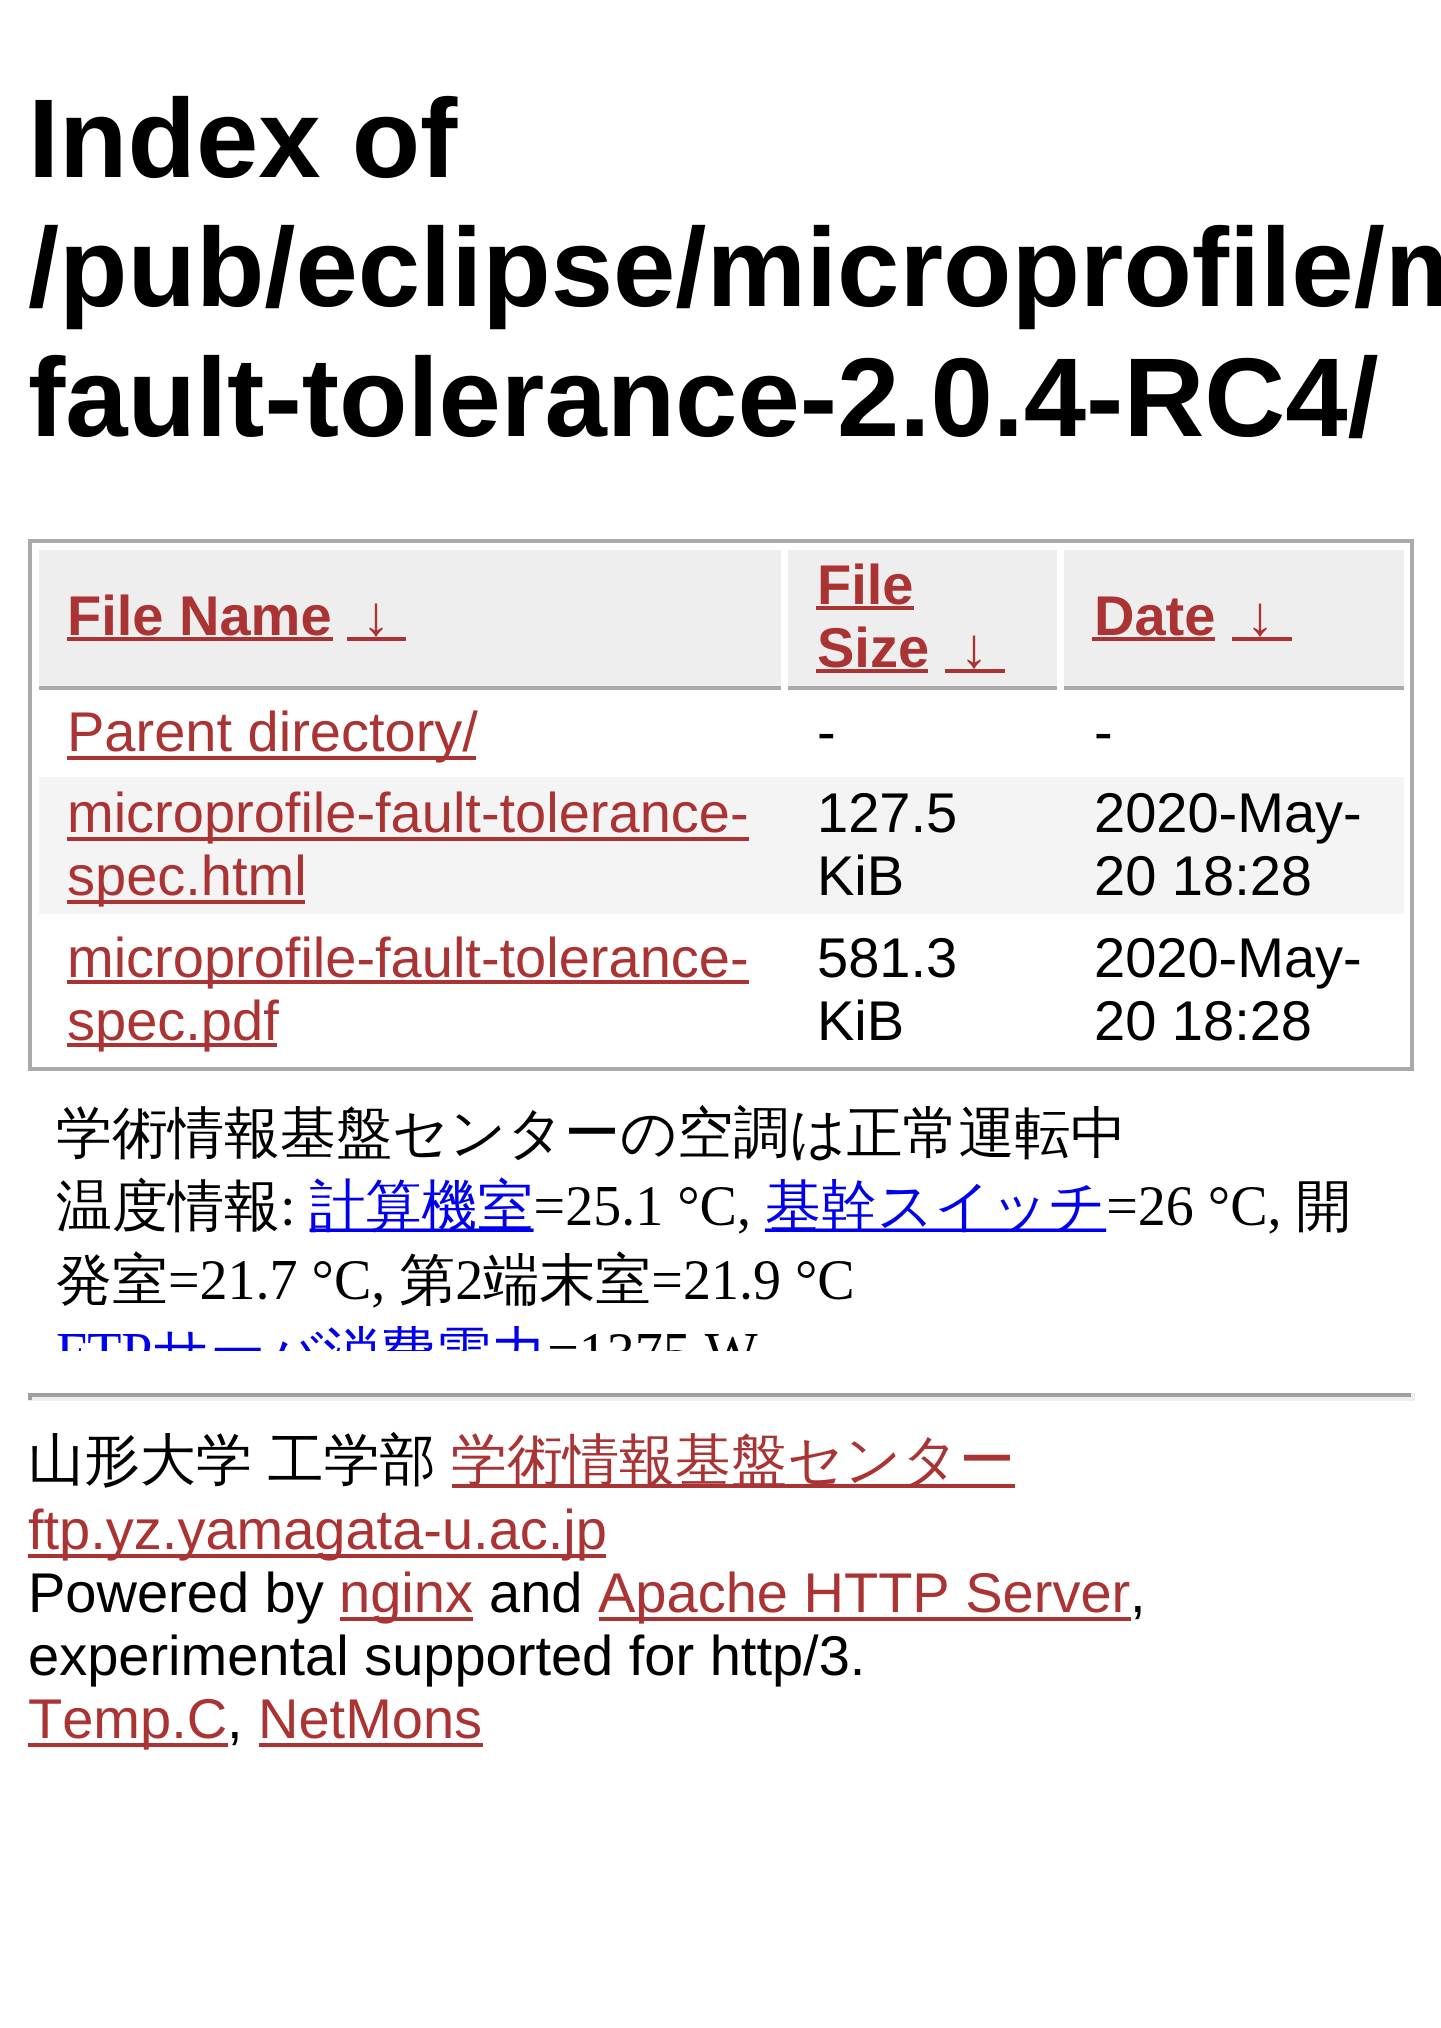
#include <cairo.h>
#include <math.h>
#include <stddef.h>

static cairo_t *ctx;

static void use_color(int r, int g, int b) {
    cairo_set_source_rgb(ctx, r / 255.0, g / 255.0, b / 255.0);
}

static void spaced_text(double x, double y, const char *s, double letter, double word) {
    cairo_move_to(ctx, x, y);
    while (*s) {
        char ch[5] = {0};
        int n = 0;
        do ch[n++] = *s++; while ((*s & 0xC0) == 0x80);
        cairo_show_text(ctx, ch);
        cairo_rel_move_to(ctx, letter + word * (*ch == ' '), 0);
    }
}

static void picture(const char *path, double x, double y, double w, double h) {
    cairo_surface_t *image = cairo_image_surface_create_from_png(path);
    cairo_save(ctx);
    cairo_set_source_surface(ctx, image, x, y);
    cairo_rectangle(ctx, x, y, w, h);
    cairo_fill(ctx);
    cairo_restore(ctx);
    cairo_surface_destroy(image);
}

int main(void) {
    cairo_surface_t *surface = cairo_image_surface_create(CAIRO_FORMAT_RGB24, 1441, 2028);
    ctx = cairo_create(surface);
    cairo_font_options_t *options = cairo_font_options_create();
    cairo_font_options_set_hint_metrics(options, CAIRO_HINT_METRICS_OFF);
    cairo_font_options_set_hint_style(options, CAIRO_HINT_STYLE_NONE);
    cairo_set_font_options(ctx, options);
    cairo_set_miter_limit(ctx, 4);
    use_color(255, 255, 255);
    cairo_paint(ctx);
    cairo_select_font_face(ctx, "Liberation Sans", CAIRO_FONT_SLANT_NORMAL, CAIRO_FONT_WEIGHT_BOLD);
    cairo_set_font_size(ctx, 112);
    use_color(0, 0, 0);
    cairo_move_to(ctx, 28, 177);
    cairo_show_text(ctx, "Index of");
    cairo_move_to(ctx, 28, 306);
    cairo_show_text(ctx, "/pub/eclipse/microprofile/m");
    cairo_move_to(ctx, 28, 436);
    cairo_show_text(ctx, "fault-tolerance-2.0.4-RC4/");
    cairo_rectangle(ctx, 30, 541, 1382, 528);
    use_color(170, 170, 170);
    cairo_set_line_width(ctx, 4);
    cairo_stroke(ctx);
    use_color(238, 238, 238);
    cairo_rectangle(ctx, 39, 550, 742, 136);
    cairo_fill(ctx);
    use_color(170, 170, 170);
    cairo_rectangle(ctx, 39, 686, 742, 4);
    cairo_fill(ctx);
    cairo_set_font_size(ctx, 56);
    use_color(170, 51, 51);
    cairo_move_to(ctx, 67, 635);
    cairo_show_text(ctx, "File Name");
    cairo_rectangle(ctx, 67, 637, 266, 4);
    cairo_fill(ctx);
    cairo_move_to(ctx, 362, 635);
    cairo_show_text(ctx, "↓");
    cairo_rectangle(ctx, 347, 637, 59, 4);
    cairo_fill(ctx);
    use_color(238, 238, 238);
    cairo_rectangle(ctx, 788, 550, 269, 136);
    cairo_fill(ctx);
    use_color(170, 170, 170);
    cairo_rectangle(ctx, 788, 686, 269, 4);
    cairo_fill(ctx);
    use_color(170, 51, 51);
    cairo_move_to(ctx, 817, 604);
    cairo_show_text(ctx, "File");
    cairo_rectangle(ctx, 816, 606, 98, 4);
    cairo_fill(ctx);
    cairo_move_to(ctx, 817, 667);
    cairo_show_text(ctx, "Size");
    cairo_rectangle(ctx, 816, 669, 112, 4);
    cairo_fill(ctx);
    cairo_move_to(ctx, 960, 667);
    cairo_show_text(ctx, "↓");
    cairo_rectangle(ctx, 945, 669, 60, 4);
    cairo_fill(ctx);
    use_color(238, 238, 238);
    cairo_rectangle(ctx, 1064, 550, 340, 136);
    cairo_fill(ctx);
    use_color(170, 170, 170);
    cairo_rectangle(ctx, 1064, 686, 340, 4);
    cairo_fill(ctx);
    use_color(170, 51, 51);
    cairo_move_to(ctx, 1094, 635);
    cairo_show_text(ctx, "Date");
    cairo_rectangle(ctx, 1092, 637, 123, 4);
    cairo_fill(ctx);
    cairo_move_to(ctx, 1246, 635);
    cairo_show_text(ctx, "↓");
    cairo_rectangle(ctx, 1232, 637, 60, 4);
    cairo_fill(ctx);
    cairo_rectangle(ctx, 67, 756, 409, 4);
    cairo_fill(ctx);
    cairo_select_font_face(ctx, "Liberation Sans", CAIRO_FONT_SLANT_NORMAL, CAIRO_FONT_WEIGHT_NORMAL);
    cairo_move_to(ctx, 67, 751);
    cairo_show_text(ctx, "Parent directory/");
    use_color(0, 0, 0);
    cairo_move_to(ctx, 817, 751);
    cairo_show_text(ctx, "-");
    cairo_move_to(ctx, 1094, 751);
    cairo_show_text(ctx, "-");
    use_color(244, 244, 244);
    cairo_rectangle(ctx, 39, 777, 1365, 137);
    cairo_fill(ctx);
    use_color(170, 51, 51);
    cairo_rectangle(ctx, 67, 837, 682, 4);
    cairo_fill(ctx);
    cairo_move_to(ctx, 67, 832);
    cairo_show_text(ctx, "microprofile-fault-tolerance-");
    cairo_rectangle(ctx, 67, 900, 238, 4);
    cairo_fill(ctx);
    cairo_move_to(ctx, 67, 895);
    cairo_show_text(ctx, "spec.html");
    use_color(0, 0, 0);
    cairo_move_to(ctx, 817, 832);
    cairo_show_text(ctx, "127.5");
    cairo_move_to(ctx, 817, 895);
    cairo_show_text(ctx, "KiB");
    cairo_move_to(ctx, 1094, 832);
    cairo_show_text(ctx, "2020-May-");
    cairo_move_to(ctx, 1094, 895);
    cairo_show_text(ctx, "20 18:28");
    use_color(170, 51, 51);
    cairo_rectangle(ctx, 67, 980, 682, 4);
    cairo_fill(ctx);
    cairo_move_to(ctx, 67, 977);
    cairo_show_text(ctx, "microprofile-fault-tolerance-");
    cairo_rectangle(ctx, 67, 1043, 210, 4);
    cairo_fill(ctx);
    cairo_move_to(ctx, 67, 1040);
    cairo_show_text(ctx, "spec.pdf");
    use_color(0, 0, 0);
    cairo_move_to(ctx, 817, 977);
    cairo_show_text(ctx, "581.3");
    cairo_move_to(ctx, 817, 1040);
    cairo_show_text(ctx, "KiB");
    cairo_move_to(ctx, 1094, 977);
    cairo_show_text(ctx, "2020-May-");
    cairo_move_to(ctx, 1094, 1040);
    cairo_show_text(ctx, "20 18:28");
    picture("img1.png", 56, 1104, 1291, 247);
    use_color(159, 159, 159);
    cairo_rectangle(ctx, 28, 1393, 1386, 4);
    cairo_fill(ctx);
    use_color(238, 238, 238);
    cairo_rectangle(ctx, 1411, 1393, 4, 7);
    cairo_fill(ctx);
    cairo_rectangle(ctx, 28, 1397, 1386, 4);
    cairo_fill(ctx);
    use_color(159, 159, 159);
    cairo_rectangle(ctx, 28, 1393, 4, 7);
    cairo_fill(ctx);
    cairo_select_font_face(ctx, "WenQuanYi Zen Hei Medium", CAIRO_FONT_SLANT_NORMAL, CAIRO_FONT_WEIGHT_NORMAL);
    use_color(0, 0, 0);
    spaced_text(28, 1479, "山形大学 工学部", 0, -1);
    use_color(170, 51, 51);
    cairo_rectangle(ctx, 452, 1484, 563, 4);
    cairo_fill(ctx);
    cairo_move_to(ctx, 451, 1479);
    cairo_show_text(ctx, "学術情報基盤センター");
    cairo_rectangle(ctx, 28, 1554, 578, 4);
    cairo_fill(ctx);
    cairo_select_font_face(ctx, "Liberation Sans", CAIRO_FONT_SLANT_NORMAL, CAIRO_FONT_WEIGHT_NORMAL);
    cairo_move_to(ctx, 28, 1549);
    cairo_show_text(ctx, "ftp.yz.yamagata-u.ac.jp");
    use_color(0, 0, 0);
    cairo_move_to(ctx, 28, 1612);
    cairo_show_text(ctx, "Powered by");
    use_color(170, 51, 51);
    cairo_rectangle(ctx, 340, 1617, 133, 4);
    cairo_fill(ctx);
    cairo_move_to(ctx, 339, 1612);
    cairo_show_text(ctx, "nginx");
    use_color(0, 0, 0);
    cairo_move_to(ctx, 489, 1612);
    cairo_show_text(ctx, "and");
    use_color(170, 51, 51);
    cairo_rectangle(ctx, 599, 1617, 532, 4);
    cairo_fill(ctx);
    cairo_move_to(ctx, 598, 1612);
    cairo_show_text(ctx, "Apache HTTP Server");
    use_color(0, 0, 0);
    cairo_move_to(ctx, 1130, 1612);
    cairo_show_text(ctx, ",");
    cairo_move_to(ctx, 28, 1675);
    cairo_show_text(ctx, "experimental supported for http/3.");
    use_color(170, 51, 51);
    cairo_rectangle(ctx, 28, 1743, 200, 4);
    cairo_fill(ctx);
    cairo_move_to(ctx, 28, 1738);
    cairo_show_text(ctx, "Temp.C");
    use_color(0, 0, 0);
    cairo_move_to(ctx, 227, 1738);
    cairo_show_text(ctx, ",");
    use_color(170, 51, 51);
    cairo_move_to(ctx, 258, 1738);
    cairo_show_text(ctx, "NetMons");
    cairo_rectangle(ctx, 259, 1743, 224, 4);
    cairo_fill(ctx);
    cairo_surface_write_to_png(surface, "result.png");
    cairo_font_options_destroy(options);
    cairo_destroy(ctx);
    cairo_surface_destroy(surface);
    return 0;
}
